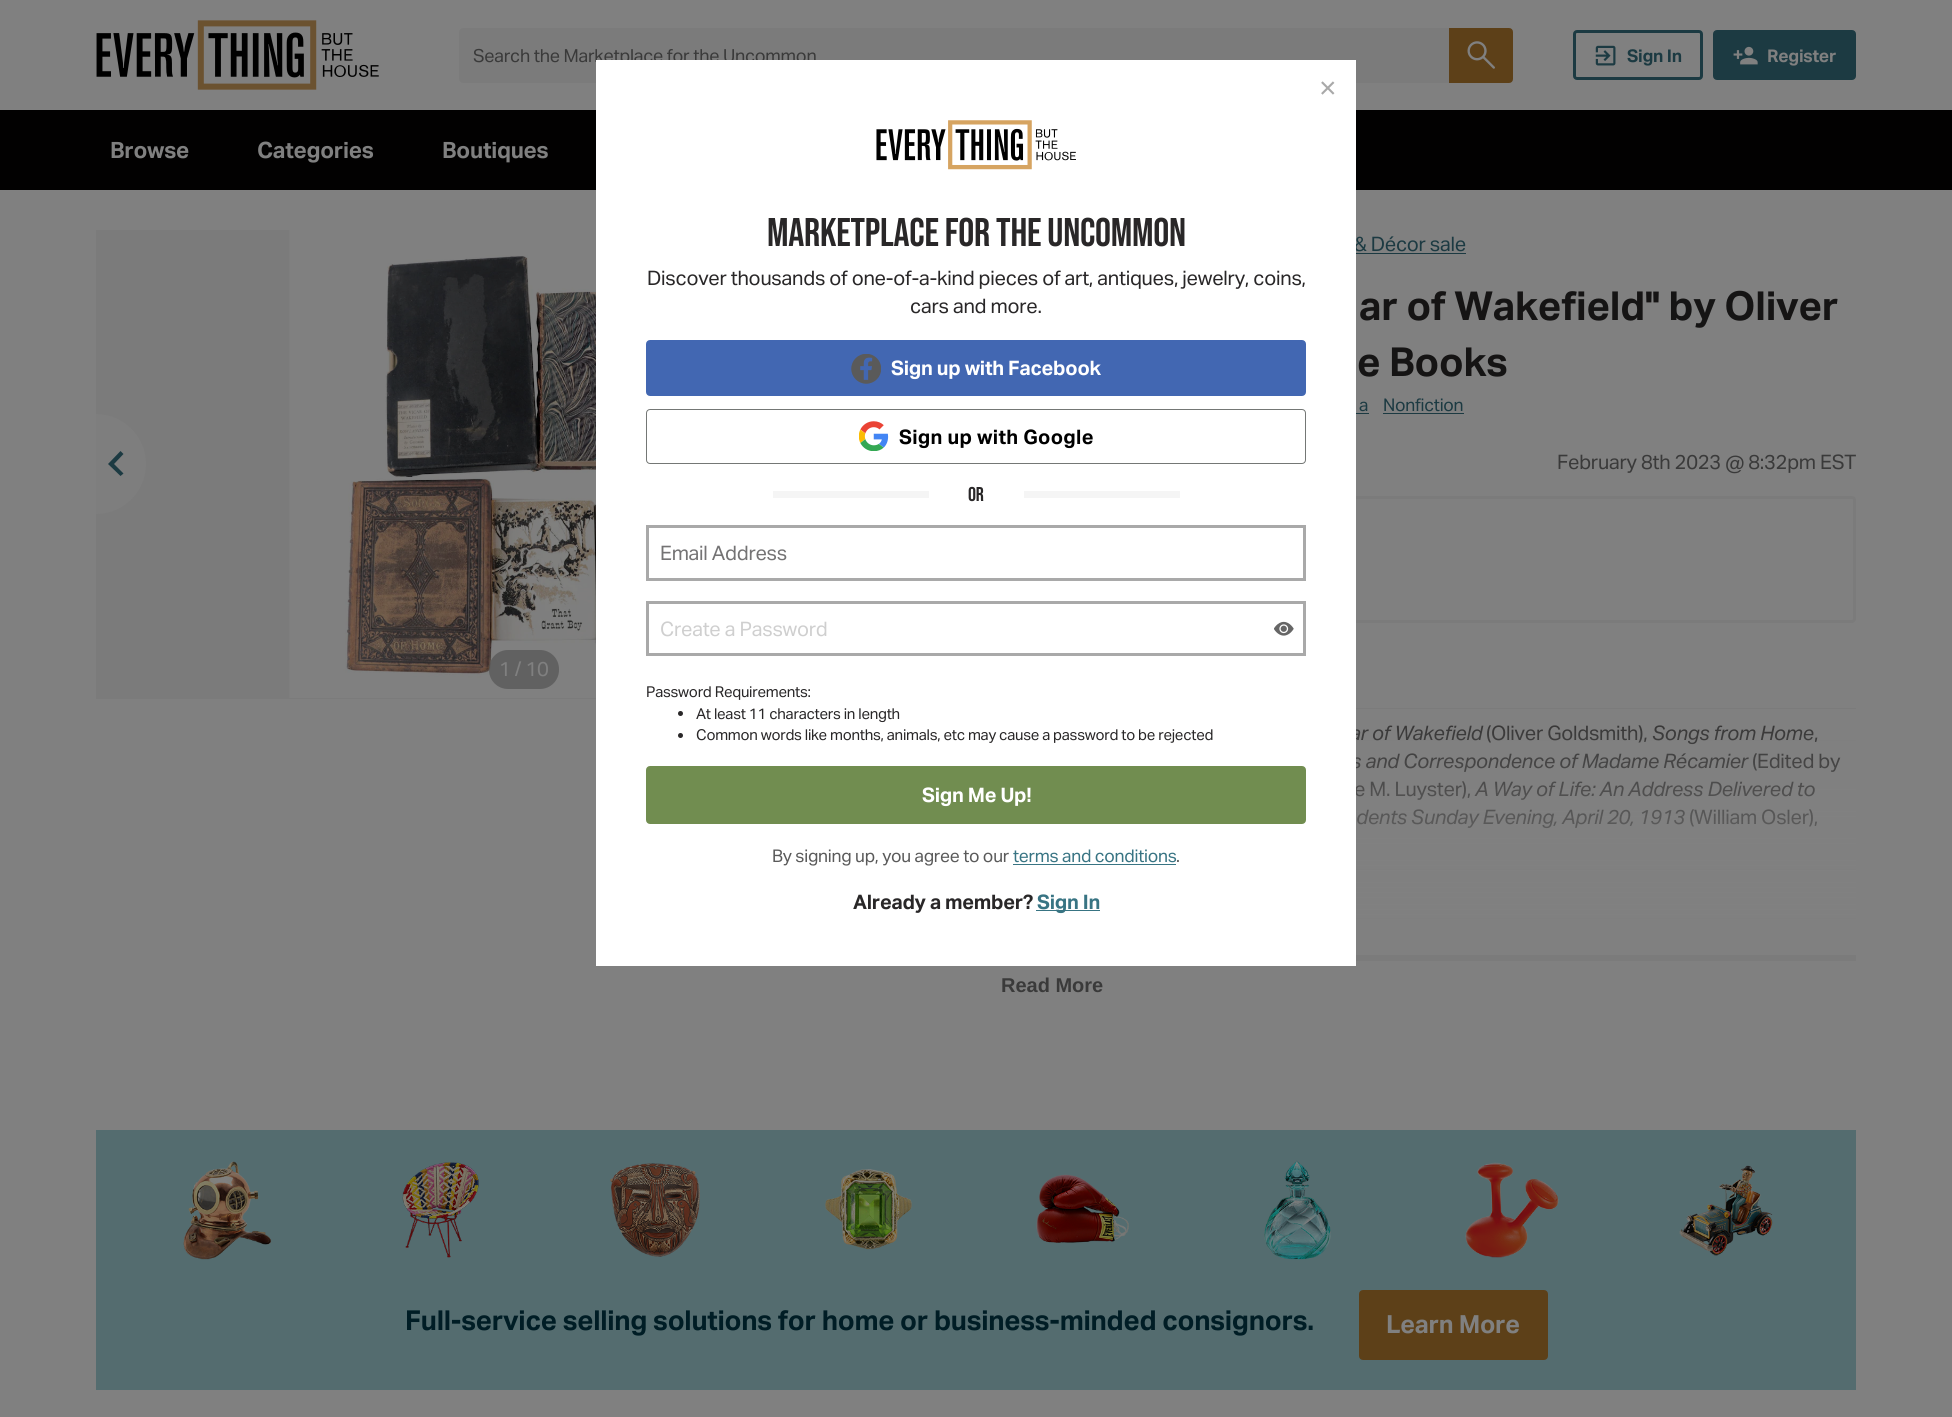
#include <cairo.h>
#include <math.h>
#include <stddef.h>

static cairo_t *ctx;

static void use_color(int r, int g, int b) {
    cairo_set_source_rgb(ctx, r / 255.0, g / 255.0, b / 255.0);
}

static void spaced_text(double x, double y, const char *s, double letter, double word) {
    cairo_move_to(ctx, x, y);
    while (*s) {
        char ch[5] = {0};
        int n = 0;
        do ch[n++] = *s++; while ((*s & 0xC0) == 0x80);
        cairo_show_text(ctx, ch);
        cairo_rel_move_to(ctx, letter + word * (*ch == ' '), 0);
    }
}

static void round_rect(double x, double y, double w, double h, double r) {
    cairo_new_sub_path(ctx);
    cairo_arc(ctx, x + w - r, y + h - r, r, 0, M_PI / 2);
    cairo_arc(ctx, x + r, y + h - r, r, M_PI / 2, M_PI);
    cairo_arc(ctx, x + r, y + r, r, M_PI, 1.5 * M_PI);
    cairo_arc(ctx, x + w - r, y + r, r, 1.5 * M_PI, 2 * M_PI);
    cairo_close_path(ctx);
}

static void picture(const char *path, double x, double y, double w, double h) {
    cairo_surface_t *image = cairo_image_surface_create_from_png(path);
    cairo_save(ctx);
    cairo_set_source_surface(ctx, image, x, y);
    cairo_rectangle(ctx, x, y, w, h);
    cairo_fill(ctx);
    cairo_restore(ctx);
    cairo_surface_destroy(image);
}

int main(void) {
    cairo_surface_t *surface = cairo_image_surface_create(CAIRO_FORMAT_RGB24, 1952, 1417);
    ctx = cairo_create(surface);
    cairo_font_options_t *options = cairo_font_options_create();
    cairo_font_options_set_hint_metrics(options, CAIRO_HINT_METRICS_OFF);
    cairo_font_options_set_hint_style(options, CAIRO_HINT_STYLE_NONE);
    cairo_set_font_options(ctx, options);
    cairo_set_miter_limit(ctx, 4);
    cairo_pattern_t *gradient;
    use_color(128, 128, 128);
    cairo_paint(ctx);
    picture("img1.png", 96, 20, 283, 70);
    use_color(123, 123, 123);
    cairo_new_path(ctx);
    cairo_move_to(ctx, 463, 28);
    cairo_line_to(ctx, 1449, 28);
    cairo_line_to(ctx, 1449, 83);
    cairo_line_to(ctx, 463, 83);
    cairo_curve_to(ctx, 461, 83, 459, 81, 459, 79);
    cairo_line_to(ctx, 459, 32);
    cairo_curve_to(ctx, 459, 30, 461, 28, 463, 28);
    cairo_close_path(ctx);
    cairo_fill(ctx);
    cairo_select_font_face(ctx, "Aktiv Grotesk", CAIRO_FONT_SLANT_NORMAL, CAIRO_FONT_WEIGHT_NORMAL);
    cairo_set_font_size(ctx, 18);
    use_color(58, 58, 58);
    spaced_text(473, 62, "Search the Marketplace for the Uncommon", -0.25, 0);
    use_color(93, 64, 24);
    cairo_new_path(ctx);
    cairo_move_to(ctx, 1450.5, 29.5);
    cairo_line_to(ctx, 1509, 29.5);
    cairo_curve_to(ctx, 1510.5, 29.5, 1511.5, 30.5, 1511.5, 32);
    cairo_line_to(ctx, 1511.5, 79);
    cairo_curve_to(ctx, 1511.5, 80.5, 1510.5, 81.5, 1509, 81.5);
    cairo_line_to(ctx, 1450.5, 81.5);
    cairo_close_path(ctx);
    cairo_fill_preserve(ctx);
    cairo_set_line_width(ctx, 3);
    cairo_stroke(ctx);
    picture("img2.png", 1467, 41, 28, 28);
    round_rect(1574.5, 31.5, 127, 47, 2.5);
    use_color(28, 58, 66);
    cairo_stroke(ctx);
    picture("img3.png", 1595, 45, 21, 21);
    cairo_select_font_face(ctx, "Aktiv Grotesk", CAIRO_FONT_SLANT_NORMAL, CAIRO_FONT_WEIGHT_BOLD);
    cairo_set_font_size(ctx, 17.5);
    spaced_text(1627, 62, "Sign In", -0.25, 0);
    round_rect(1714.5, 31.5, 140, 47, 2.5);
    cairo_fill_preserve(ctx);
    cairo_stroke(ctx);
    picture("img4.png", 1733, 46, 25, 19);
    use_color(128, 128, 128);
    spaced_text(1767, 62, "Register", -0.25, 0);
    use_color(2, 1, 1);
    cairo_rectangle(ctx, 0, 110, 1952, 80);
    cairo_fill(ctx);
    cairo_set_font_size(ctx, 22.5);
    use_color(128, 128, 128);
    spaced_text(110, 158, "Browse", -0.25, 0);
    spaced_text(257, 158, "Categories", -0.25, 0);
    spaced_text(442, 158, "Boutiques", -0.25, 0);
    cairo_select_font_face(ctx, "Aktiv Grotesk", CAIRO_FONT_SLANT_NORMAL, CAIRO_FONT_WEIGHT_NORMAL);
    cairo_set_font_size(ctx, 20);
    use_color(28, 58, 66);
    spaced_text(1354, 251, "& Décor sale", -0.25, 0);
    round_rect(1002.5, 497.5, 852, 124, 2.5);
    use_color(123, 123, 123);
    cairo_stroke(ctx);
    cairo_select_font_face(ctx, "Aktiv Grotesk", CAIRO_FONT_SLANT_ITALIC, CAIRO_FONT_WEIGHT_NORMAL);
    use_color(21, 20, 20);
    spaced_text(1350, 740, "ar of Wakefield", -0.25, 0);
    spaced_text(1351, 768, "s and Correspondence of Madame Récamier", -0.25, 0);
    cairo_select_font_face(ctx, "Aktiv Grotesk", CAIRO_FONT_SLANT_NORMAL, CAIRO_FONT_WEIGHT_NORMAL);
    spaced_text(1354, 796, "e M. Luyster),", -0.25, 0);
    use_color(255, 255, 255);
    cairo_rectangle(ctx, 596, 60, 760, 906);
    cairo_fill(ctx);
    cairo_select_font_face(ctx, "Liberation Sans", CAIRO_FONT_SLANT_NORMAL, CAIRO_FONT_WEIGHT_NORMAL);
    cairo_set_font_size(ctx, 30);
    use_color(169, 169, 169);
    cairo_move_to(ctx, 1319, 98);
    cairo_show_text(ctx, "×");
    picture("img5.png", 876, 120, 200, 50);
    cairo_select_font_face(ctx, "Bebas Neue", CAIRO_FONT_SLANT_NORMAL, CAIRO_FONT_WEIGHT_NORMAL);
    cairo_set_font_size(ctx, 40);
    use_color(41, 39, 40);
    spaced_text(767, 246, "MARKETPLACE FOR THE UNCOMMON", -0.25, 0);
    cairo_select_font_face(ctx, "Aktiv Grotesk", CAIRO_FONT_SLANT_NORMAL, CAIRO_FONT_WEIGHT_NORMAL);
    cairo_set_font_size(ctx, 20);
    spaced_text(647, 285, "Discover thousands of one-of-a-kind pieces of art, antiques, jewelry, coins,", -0.25, 0);
    spaced_text(910, 313, "cars and more.", -0.25, 0);
    use_color(66, 103, 178);
    round_rect(647.5, 341.5, 657, 53, 2.5);
    cairo_fill_preserve(ctx);
    cairo_stroke(ctx);
    picture("img6.png", 851, 354, 30, 30);
    cairo_select_font_face(ctx, "Aktiv Grotesk", CAIRO_FONT_SLANT_NORMAL, CAIRO_FONT_WEIGHT_BOLD);
    use_color(255, 255, 255);
    spaced_text(891, 375, "Sign up with Facebook", -0.25, 0);
    round_rect(646.5, 409.5, 659, 54, 3.5);
    use_color(116, 119, 117);
    cairo_set_line_width(ctx, 1);
    cairo_stroke(ctx);
    picture("img7.png", 859, 421, 30, 30);
    use_color(0, 0, 0);
    spaced_text(899, 444, "Sign up with Google", 0.3, 0);
    use_color(245, 245, 245);
    cairo_rectangle(ctx, 773, 491, 156, 7);
    cairo_fill(ctx);
    cairo_select_font_face(ctx, "Bebas Neue", CAIRO_FONT_SLANT_NORMAL, CAIRO_FONT_WEIGHT_NORMAL);
    use_color(41, 39, 40);
    spaced_text(968, 501, "OR", -0.25, 0);
    use_color(245, 245, 245);
    cairo_rectangle(ctx, 1024, 491, 156, 7);
    cairo_fill(ctx);
    cairo_rectangle(ctx, 647.5, 526.5, 657, 53);
    use_color(169, 169, 169);
    cairo_set_line_width(ctx, 3);
    cairo_stroke(ctx);
    cairo_select_font_face(ctx, "Aktiv Grotesk", CAIRO_FONT_SLANT_NORMAL, CAIRO_FONT_WEIGHT_NORMAL);
    use_color(116, 115, 116);
    spaced_text(660, 560, "Email Address", -0.25, 0);
    cairo_rectangle(ctx, 647.5, 602.5, 657, 52);
    use_color(169, 169, 169);
    cairo_stroke(ctx);
    use_color(207, 207, 207);
    spaced_text(660, 636, "Create a Password", -0.25, 0);
    picture("img8.png", 1274, 621, 20, 15);
    cairo_set_font_size(ctx, 15);
    use_color(41, 39, 40);
    spaced_text(646, 697, "Password Requirements:", -0.25, 0);
    cairo_new_path(ctx);
    cairo_arc(ctx, 680.5, 713.5, 2.5, 0, 2 * M_PI);
    cairo_fill(ctx);
    spaced_text(696, 719, "At least 11 characters in length", -0.25, 0);
    cairo_new_path(ctx);
    cairo_arc(ctx, 680.5, 735.5, 2.5, 0, 2 * M_PI);
    cairo_fill(ctx);
    spaced_text(696, 740, "Common words like months, animals, etc may cause a password to be rejected", -0.25, 0);
    use_color(113, 141, 80);
    round_rect(647.5, 767.5, 657, 55, 2.5);
    cairo_fill_preserve(ctx);
    cairo_stroke(ctx);
    cairo_select_font_face(ctx, "Aktiv Grotesk", CAIRO_FONT_SLANT_NORMAL, CAIRO_FONT_WEIGHT_BOLD);
    cairo_set_font_size(ctx, 20);
    use_color(255, 255, 255);
    spaced_text(922, 802, "Sign Me Up!", -0.25, 0);
    cairo_select_font_face(ctx, "Aktiv Grotesk", CAIRO_FONT_SLANT_NORMAL, CAIRO_FONT_WEIGHT_NORMAL);
    cairo_set_font_size(ctx, 17.5);
    use_color(90, 90, 90);
    spaced_text(772, 862, "By signing up, you agree to our", -0.25, 0);
    use_color(56, 116, 131);
    spaced_text(1013, 862, "terms and conditions", -0.25, 0);
    cairo_rectangle(ctx, 1013, 864, 163, 1);
    cairo_fill(ctx);
    use_color(90, 90, 90);
    spaced_text(1176, 862, ".", -0.25, 0);
    cairo_select_font_face(ctx, "Aktiv Grotesk", CAIRO_FONT_SLANT_NORMAL, CAIRO_FONT_WEIGHT_BOLD);
    cairo_set_font_size(ctx, 20);
    use_color(41, 39, 40);
    spaced_text(853, 909, "Already a member?", -0.25, 0);
    use_color(56, 116, 131);
    cairo_rectangle(ctx, 1036, 910, 64, 1);
    cairo_fill(ctx);
    spaced_text(1037, 909, "Sign In", -0.25, 0);
    use_color(123, 123, 123);
    cairo_rectangle(ctx, 96, 230, 500, 469);
    cairo_fill(ctx);
    picture("img9.png", 289, 230, 307, 468);
    use_color(126, 126, 126);
    cairo_new_path(ctx);
    cairo_move_to(ctx, 96, 414);
    cairo_curve_to(ctx, 123.5, 414, 146, 436.5, 146, 464);
    cairo_curve_to(ctx, 146, 491.5, 123.5, 514, 96, 514);
    cairo_close_path(ctx);
    cairo_fill(ctx);
    use_color(28, 58, 66);
    cairo_new_path(ctx);
    cairo_move_to(ctx, 123.5, 454);
    cairo_line_to(ctx, 120.5, 451);
    cairo_line_to(ctx, 108, 464);
    cairo_line_to(ctx, 120.5, 476);
    cairo_line_to(ctx, 123.5, 473.5);
    cairo_line_to(ctx, 114, 464);
    cairo_close_path(ctx);
    cairo_fill(ctx);
    cairo_set_source_rgba(ctx, 0.333, 0.333, 0.333, 0.7);
    round_rect(489, 650, 70, 39, 19);
    cairo_fill(ctx);
    cairo_select_font_face(ctx, "Aktiv Grotesk", CAIRO_FONT_SLANT_NORMAL, CAIRO_FONT_WEIGHT_NORMAL);
    use_color(128, 128, 128);
    spaced_text(499, 676, "1 / 10", -0.25, 0);
    use_color(28, 58, 66);
    cairo_rectangle(ctx, 1356, 253, 110, 1);
    cairo_fill(ctx);
    cairo_select_font_face(ctx, "Aktiv Grotesk", CAIRO_FONT_SLANT_NORMAL, CAIRO_FONT_WEIGHT_BOLD);
    cairo_set_font_size(ctx, 40);
    use_color(21, 20, 20);
    spaced_text(1359, 320, "ar of Wakefield\" by Oliver", -0.25, 0);
    spaced_text(1357, 376, "e Books", -0.25, 0);
    cairo_select_font_face(ctx, "Aktiv Grotesk", CAIRO_FONT_SLANT_NORMAL, CAIRO_FONT_WEIGHT_NORMAL);
    cairo_set_font_size(ctx, 17.5);
    use_color(28, 58, 66);
    spaced_text(1359, 411, "a", -0.25, 0);
    cairo_rectangle(ctx, 1356, 413, 13, 1);
    cairo_fill(ctx);
    spaced_text(1383, 411, "Nonfiction", -0.25, 0);
    cairo_rectangle(ctx, 1383, 413, 81, 1);
    cairo_fill(ctx);
    cairo_set_font_size(ctx, 20);
    use_color(58, 58, 58);
    spaced_text(1557, 469, "February 8th 2023 @ 8:32pm EST", -0.25, 0);
    use_color(123, 123, 123);
    cairo_rectangle(ctx, 1356, 708, 500, 1);
    cairo_fill(ctx);
    cairo_rectangle(ctx, 1356, 869, 500, 1);
    cairo_fill(ctx);
    use_color(21, 20, 20);
    spaced_text(1486, 740, "(Oliver Goldsmith),", -0.25, 0);
    cairo_select_font_face(ctx, "Aktiv Grotesk", CAIRO_FONT_SLANT_ITALIC, CAIRO_FONT_WEIGHT_NORMAL);
    spaced_text(1652, 740, "Songs from Home", -0.25, 0);
    cairo_select_font_face(ctx, "Aktiv Grotesk", CAIRO_FONT_SLANT_NORMAL, CAIRO_FONT_WEIGHT_NORMAL);
    spaced_text(1814, 740, ",", -0.25, 0);
    spaced_text(1752, 768, "(Edited by", -0.25, 0);
    cairo_select_font_face(ctx, "Aktiv Grotesk", CAIRO_FONT_SLANT_ITALIC, CAIRO_FONT_WEIGHT_NORMAL);
    spaced_text(1475, 796, "A Way of Life: An Address Delivered to", -0.25, 0);
    spaced_text(1356, 824, "dents Sunday Evening, April 20, 1913", -0.25, 0);
    cairo_select_font_face(ctx, "Aktiv Grotesk", CAIRO_FONT_SLANT_NORMAL, CAIRO_FONT_WEIGHT_NORMAL);
    spaced_text(1689, 824, "(William Osler),", -0.25, 0);
    use_color(123, 123, 123);
    cairo_rectangle(ctx, 1356, 918, 500, 1);
    cairo_fill(ctx);
    gradient = cairo_pattern_create_linear(1429, 622, 1429, 935);
    cairo_pattern_add_color_stop_rgba(gradient, 0, 0.502, 0.502, 0.502, 0);
    cairo_pattern_add_color_stop_rgba(gradient, 1, 0.502, 0.502, 0.502, 1);
    cairo_set_source(ctx, gradient);
    cairo_pattern_destroy(gradient);
    cairo_rectangle(ctx, 1356, 725, 500, 194);
    cairo_fill(ctx);
    use_color(123, 123, 123);
    cairo_rectangle(ctx, 1356, 955, 500, 6);
    cairo_fill(ctx);
    cairo_select_font_face(ctx, "Liberation Sans", CAIRO_FONT_SLANT_NORMAL, CAIRO_FONT_WEIGHT_BOLD);
    use_color(58, 58, 58);
    cairo_move_to(ctx, 1001, 992);
    cairo_show_text(ctx, "Read More");
    use_color(84, 108, 111);
    cairo_rectangle(ctx, 96, 1130, 1760, 260);
    cairo_fill(ctx);
    picture("img10.png", 183, 1161, 89, 99);
    picture("img11.png", 402, 1162, 77, 96);
    picture("img12.png", 610, 1163, 90, 94);
    picture("img13.png", 825, 1169, 87, 81);
    picture("img14.png", 1036, 1174, 93, 69);
    picture("img15.png", 1264, 1160, 67, 100);
    picture("img16.png", 1465, 1162, 94, 96);
    picture("img17.png", 1679, 1165, 94, 91);
    cairo_select_font_face(ctx, "Aktiv Grotesk", CAIRO_FONT_SLANT_NORMAL, CAIRO_FONT_WEIGHT_BOLD);
    cairo_set_font_size(ctx, 27.5);
    use_color(0, 29, 37);
    spaced_text(405, 1330, "Full-service selling solutions for home or business-minded consignors.", -0.25, 0);
    use_color(93, 64, 24);
    round_rect(1360.5, 1291.5, 186, 67, 2.5);
    cairo_fill_preserve(ctx);
    cairo_stroke(ctx);
    cairo_set_font_size(ctx, 25);
    use_color(128, 128, 128);
    spaced_text(1386, 1333, "Learn More", -0.25, 0);
    cairo_surface_write_to_png(surface, "result.png");
    cairo_font_options_destroy(options);
    cairo_destroy(ctx);
    cairo_surface_destroy(surface);
    return 0;
}
